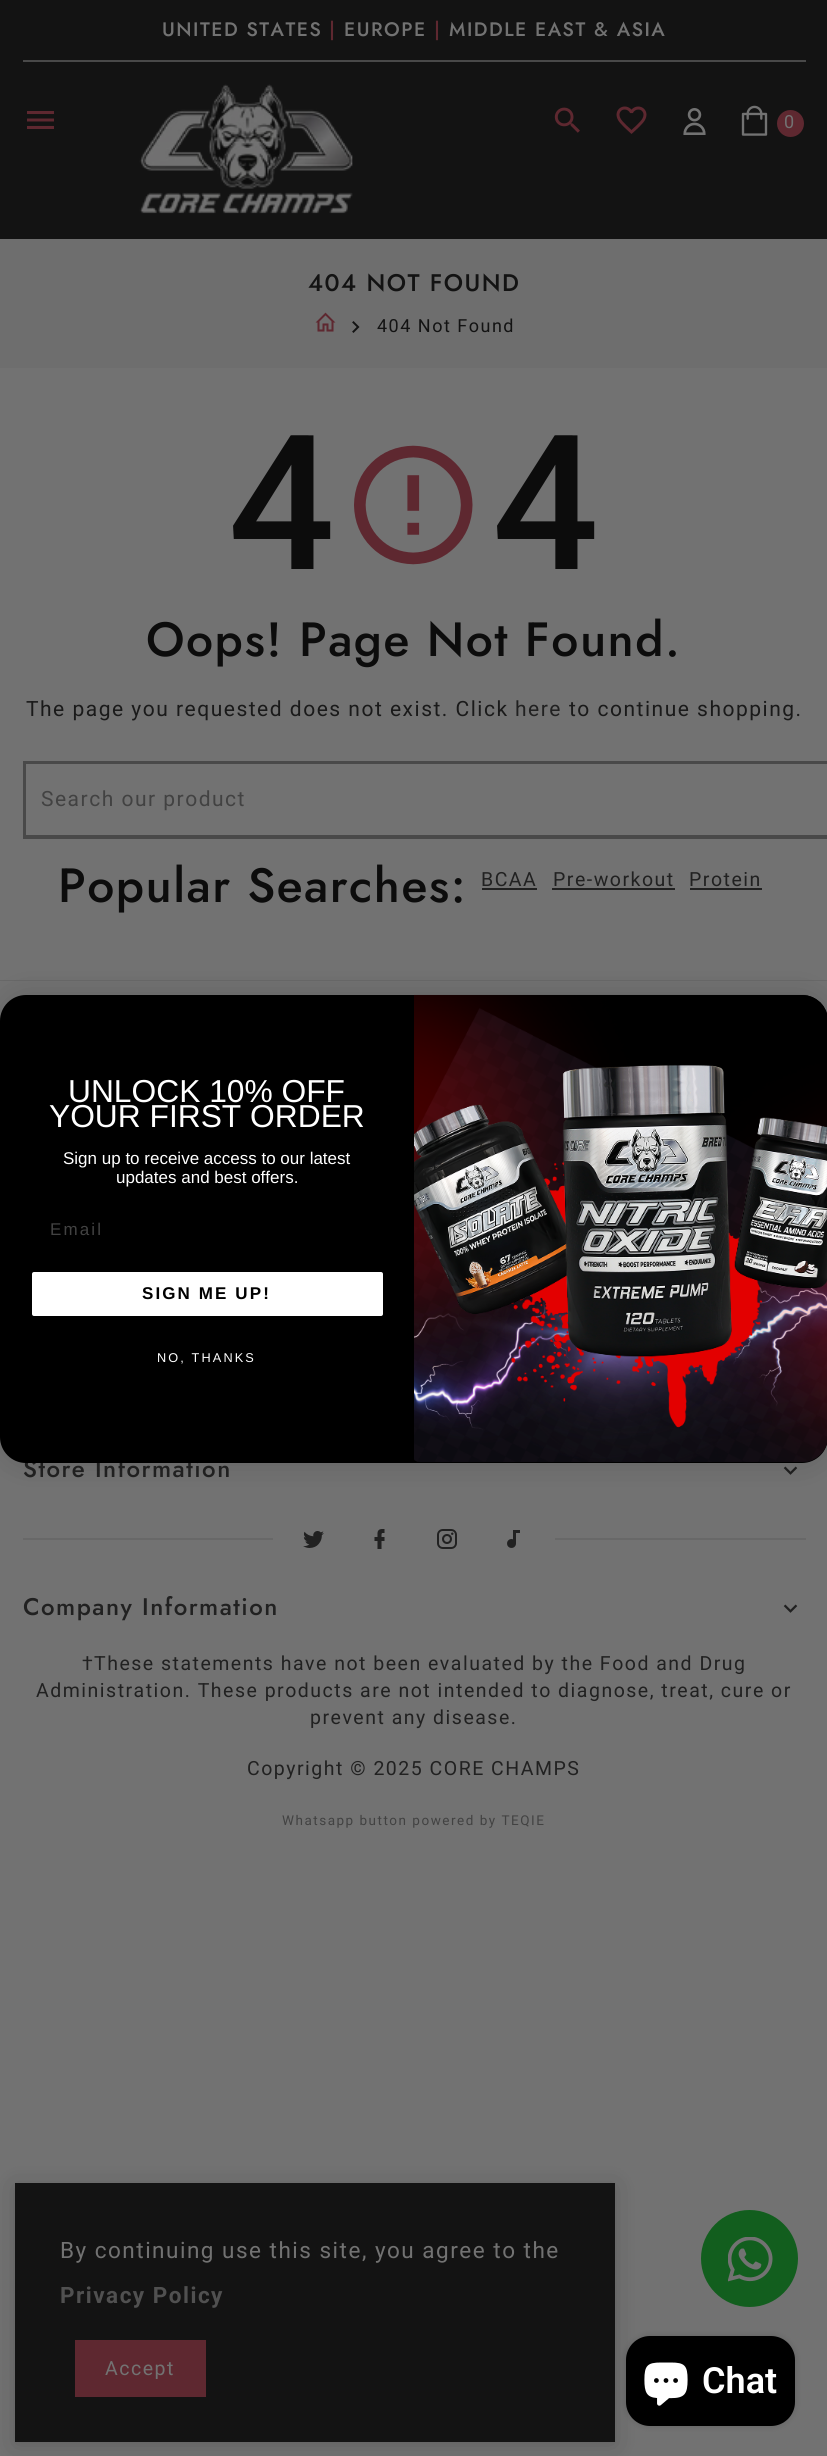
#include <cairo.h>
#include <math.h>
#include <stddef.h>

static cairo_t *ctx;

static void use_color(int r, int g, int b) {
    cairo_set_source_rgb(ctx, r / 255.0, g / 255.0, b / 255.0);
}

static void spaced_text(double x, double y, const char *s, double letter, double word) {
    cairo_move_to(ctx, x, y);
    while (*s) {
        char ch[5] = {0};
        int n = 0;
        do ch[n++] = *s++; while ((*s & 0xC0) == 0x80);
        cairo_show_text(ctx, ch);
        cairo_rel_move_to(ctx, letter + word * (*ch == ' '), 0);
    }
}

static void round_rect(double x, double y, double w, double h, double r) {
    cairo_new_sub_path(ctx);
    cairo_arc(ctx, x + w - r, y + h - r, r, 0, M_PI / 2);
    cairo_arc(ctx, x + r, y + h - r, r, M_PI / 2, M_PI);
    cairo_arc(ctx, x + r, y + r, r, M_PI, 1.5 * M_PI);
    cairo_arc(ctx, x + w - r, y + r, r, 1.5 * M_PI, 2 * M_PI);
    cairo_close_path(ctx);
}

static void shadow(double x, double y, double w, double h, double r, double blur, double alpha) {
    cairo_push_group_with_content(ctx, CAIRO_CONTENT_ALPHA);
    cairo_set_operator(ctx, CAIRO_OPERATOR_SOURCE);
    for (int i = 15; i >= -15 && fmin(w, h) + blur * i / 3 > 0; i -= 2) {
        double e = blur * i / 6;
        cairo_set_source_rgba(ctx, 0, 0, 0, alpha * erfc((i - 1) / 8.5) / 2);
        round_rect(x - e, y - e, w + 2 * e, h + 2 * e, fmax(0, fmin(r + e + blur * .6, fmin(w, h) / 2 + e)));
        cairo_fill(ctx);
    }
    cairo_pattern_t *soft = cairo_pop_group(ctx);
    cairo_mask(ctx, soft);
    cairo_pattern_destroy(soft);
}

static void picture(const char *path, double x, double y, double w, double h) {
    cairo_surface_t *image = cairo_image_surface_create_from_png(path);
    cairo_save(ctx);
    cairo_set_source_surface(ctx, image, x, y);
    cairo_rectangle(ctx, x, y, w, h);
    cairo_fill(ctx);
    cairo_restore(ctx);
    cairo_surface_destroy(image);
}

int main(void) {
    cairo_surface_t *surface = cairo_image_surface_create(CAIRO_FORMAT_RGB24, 827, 2456);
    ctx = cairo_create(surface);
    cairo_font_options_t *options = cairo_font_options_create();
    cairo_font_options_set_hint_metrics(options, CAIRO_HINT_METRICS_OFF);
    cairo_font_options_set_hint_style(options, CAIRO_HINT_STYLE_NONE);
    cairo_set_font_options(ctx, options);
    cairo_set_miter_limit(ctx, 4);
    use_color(114, 114, 114);
    cairo_paint(ctx);
    use_color(19, 19, 19);
    cairo_rectangle(ctx, 0, 0, 827, 239);
    cairo_fill(ctx);
    cairo_select_font_face(ctx, "Jost Medium", CAIRO_FONT_SLANT_NORMAL, CAIRO_FONT_WEIGHT_NORMAL);
    cairo_set_font_size(ctx, 19.5);
    use_color(114, 114, 114);
    spaced_text(162, 36, "UNITED STATES", 1.5, 0);
    use_color(94, 40, 48);
    spaced_text(329, 36, "|", 1.5, 0);
    use_color(114, 114, 114);
    spaced_text(344, 36, "EUROPE", 1.5, 0);
    use_color(94, 40, 48);
    spaced_text(434, 36, "|", 1.5, 0);
    use_color(114, 114, 114);
    spaced_text(449, 36, "MIDDLE EAST & ASIA", 1.5, 0);
    use_color(73, 73, 73);
    cairo_rectangle(ctx, 23, 60, 783, 2);
    cairo_fill(ctx);
    picture("img1.png", 27, 111, 27, 18);
    picture("img2.png", 139, 84, 214, 130);
    picture("img3.png", 554, 107, 26, 26);
    picture("img4.png", 616, 106, 31, 28);
    picture("img5.png", 683, 108, 23, 27);
    picture("img6.png", 741, 105, 27, 31);
    use_color(94, 40, 48);
    cairo_arc(ctx, 790.5, 123.5, 13.5, 0, 2 * M_PI);
    cairo_fill(ctx);
    cairo_select_font_face(ctx, "Roboto", CAIRO_FONT_SLANT_NORMAL, CAIRO_FONT_WEIGHT_NORMAL);
    cairo_set_font_size(ctx, 18);
    use_color(114, 114, 114);
    spaced_text(784, 128, "0", 1.5, 0);
    use_color(110, 110, 110);
    cairo_rectangle(ctx, 0, 239, 827, 129);
    cairo_fill(ctx);
    cairo_select_font_face(ctx, "Jost Medium", CAIRO_FONT_SLANT_NORMAL, CAIRO_FONT_WEIGHT_NORMAL);
    cairo_set_font_size(ctx, 24);
    use_color(19, 19, 19);
    spaced_text(308, 291, "404 NOT FOUND", 1.5, 0);
    picture("img7.png", 315, 312, 21, 20);
    picture("img8.png", 352, 321, 8, 12);
    cairo_select_font_face(ctx, "Roboto", CAIRO_FONT_SLANT_NORMAL, CAIRO_FONT_WEIGHT_NORMAL);
    cairo_set_font_size(ctx, 18);
    spaced_text(377, 332, "404 Not Found", 1.5, 0);
    cairo_select_font_face(ctx, "Roboto Medium", CAIRO_FONT_SLANT_NORMAL, CAIRO_FONT_WEIGHT_NORMAL);
    cairo_set_font_size(ctx, 188);
    use_color(12, 12, 12);
    spaced_text(228, 569, "4", 1.5, 0);
    picture("img9.png", 354, 445, 119, 120);
    spaced_text(492, 569, "4", 1.5, 0);
    cairo_select_font_face(ctx, "Jost Medium", CAIRO_FONT_SLANT_NORMAL, CAIRO_FONT_WEIGHT_NORMAL);
    cairo_set_font_size(ctx, 48);
    spaced_text(146, 656, "Oops! Page Not Found.", 1.5, 0);
    cairo_select_font_face(ctx, "Roboto", CAIRO_FONT_SLANT_NORMAL, CAIRO_FONT_WEIGHT_NORMAL);
    cairo_set_font_size(ctx, 21);
    use_color(26, 26, 26);
    spaced_text(26, 716, "The page you requested does not exist. Click", 1.5, 0);
    use_color(33, 33, 33);
    spaced_text(515, 716, "here", 1.5, 0);
    use_color(26, 26, 26);
    spaced_text(569, 716, "to continue shopping.", 1.5, 0);
    cairo_rectangle(ctx, 24, 762, 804, 76);
    use_color(73, 73, 73);
    cairo_stroke(ctx);
    cairo_rectangle(ctx, 25, 763, 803, 73);
    cairo_stroke(ctx);
    use_color(66, 66, 66);
    spaced_text(41, 806, "Search our product", 1.5, 0);
    cairo_select_font_face(ctx, "Jost Medium", CAIRO_FONT_SLANT_NORMAL, CAIRO_FONT_WEIGHT_NORMAL);
    cairo_set_font_size(ctx, 48);
    use_color(12, 12, 12);
    spaced_text(58, 902, "Popular Searches:", 1.5, 0);
    cairo_select_font_face(ctx, "Roboto", CAIRO_FONT_SLANT_NORMAL, CAIRO_FONT_WEIGHT_NORMAL);
    cairo_set_font_size(ctx, 19.5);
    use_color(33, 33, 33);
    spaced_text(481, 886, "BCAA", 1.5, 0);
    cairo_rectangle(ctx, 482, 888, 55, 2);
    cairo_fill(ctx);
    spaced_text(553, 886, "Pre-workout", 1.5, 0);
    cairo_rectangle(ctx, 552, 888, 123, 2);
    cairo_fill(ctx);
    spaced_text(689, 886, "Protein", 1.5, 0);
    cairo_rectangle(ctx, 690, 888, 72, 2);
    cairo_fill(ctx);
    use_color(104, 104, 104);
    cairo_rectangle(ctx, 0, 980, 827, 1);
    cairo_fill(ctx);
    cairo_select_font_face(ctx, "Jost Medium", CAIRO_FONT_SLANT_NORMAL, CAIRO_FONT_WEIGHT_NORMAL);
    cairo_set_font_size(ctx, 24);
    use_color(33, 33, 33);
    spaced_text(23, 1477, "Store Information", 1.5, 0);
    picture("img10.png", 783, 1466, 15, 9);
    use_color(104, 104, 104);
    cairo_rectangle(ctx, 23, 1538, 250, 2);
    cairo_fill(ctx);
    picture("img11.png", 303, 1531, 21, 17);
    picture("img12.png", 374, 1529, 11, 20);
    picture("img13.png", 437, 1529, 20, 20);
    picture("img14.png", 507, 1530, 13, 18);
    cairo_rectangle(ctx, 555, 1538, 251, 2);
    cairo_fill(ctx);
    use_color(33, 33, 33);
    spaced_text(23, 1615, "Company Information", 1.5, 0);
    picture("img10.png", 783, 1604, 15, 9);
    cairo_select_font_face(ctx, "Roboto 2", CAIRO_FONT_SLANT_NORMAL, CAIRO_FONT_WEIGHT_NORMAL);
    cairo_set_font_size(ctx, 19.5);
    spaced_text(82, 1670, "†", 1.5, 0);
    cairo_select_font_face(ctx, "Roboto", CAIRO_FONT_SLANT_NORMAL, CAIRO_FONT_WEIGHT_NORMAL);
    spaced_text(94, 1670, "These statements have not been evaluated by the Food and Drug", 1.5, 0);
    spaced_text(36, 1697, "Administration. These products are not intended to diagnose, treat, cure or", 1.5, 0);
    spaced_text(310, 1724, "prevent any disease.", 1.5, 0);
    spaced_text(247, 1775, "Copyright © 2025 CORE CHAMPS", 1.5, 0);
    use_color(12, 12, 12);
    shadow(15, 2186, 600, 259, 0, 11, 0.2);
    use_color(19, 19, 19);
    cairo_rectangle(ctx, 15, 2183, 600, 259);
    cairo_fill(ctx);
    cairo_set_font_size(ctx, 22.5);
    use_color(114, 114, 114);
    spaced_text(60, 2258, "By continuing use this site, you agree to the", 1.5, 0);
    cairo_select_font_face(ctx, "Roboto", CAIRO_FONT_SLANT_NORMAL, CAIRO_FONT_WEIGHT_BOLD);
    use_color(80, 80, 80);
    spaced_text(60, 2303, "Privacy Policy", 1.5, 0);
    use_color(94, 40, 48);
    cairo_rectangle(ctx, 75, 2340, 131, 57);
    cairo_fill(ctx);
    cairo_select_font_face(ctx, "Roboto", CAIRO_FONT_SLANT_NORMAL, CAIRO_FONT_WEIGHT_NORMAL);
    cairo_set_font_size(ctx, 19.5);
    use_color(114, 114, 114);
    spaced_text(105, 2375, "Accept", 1.5, 0);
    use_color(0, 0, 0);
    shadow(0, 995, 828, 468, 26, 16, 0.15);
    use_color(0, 0, 0);
    round_rect(0, 995, 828, 468, 26);
    cairo_fill(ctx);
    cairo_select_font_face(ctx, "Liberation Sans", CAIRO_FONT_SLANT_NORMAL, CAIRO_FONT_WEIGHT_NORMAL);
    cairo_set_font_size(ctx, 31.75);
    use_color(255, 255, 255);
    cairo_move_to(ctx, 68, 1102);
    cairo_show_text(ctx, "UNLOCK 10% OFF");
    cairo_move_to(ctx, 49, 1127);
    cairo_show_text(ctx, "YOUR FIRST ORDER");
    cairo_set_font_size(ctx, 17);
    cairo_move_to(ctx, 63, 1164);
    cairo_show_text(ctx, "Sign up to receive access to our latest");
    cairo_move_to(ctx, 116, 1183);
    cairo_show_text(ctx, "updates and best offers.");
    use_color(66, 66, 66);
    spaced_text(50, 1235, "Email", 2.1, 0);
    use_color(255, 255, 255);
    round_rect(32, 1272, 351, 44, 2);
    cairo_fill(ctx);
    cairo_select_font_face(ctx, "Liberation Sans", CAIRO_FONT_SLANT_NORMAL, CAIRO_FONT_WEIGHT_BOLD);
    use_color(0, 0, 0);
    spaced_text(142, 1299, "SIGN ME UP!", 2.1, 0);
    cairo_select_font_face(ctx, "Liberation Sans", CAIRO_FONT_SLANT_NORMAL, CAIRO_FONT_WEIGHT_NORMAL);
    cairo_set_font_size(ctx, 12.75);
    use_color(255, 255, 255);
    spaced_text(157, 1362, "NO, THANKS", 2.1, 0);
    picture("img15.png", 414, 994, 413, 468);
    cairo_select_font_face(ctx, "Roboto", CAIRO_FONT_SLANT_NORMAL, CAIRO_FONT_WEIGHT_NORMAL);
    cairo_set_font_size(ctx, 13.5);
    use_color(66, 66, 66);
    spaced_text(282, 1825, "Whatsapp button powered by TEQIE", 1.5, 0);
    use_color(18, 94, 30);
    cairo_new_path(ctx);
    cairo_arc(ctx, 749.5, 2258.5, 48.5, 0, 2 * M_PI);
    cairo_fill(ctx);
    picture("img16.png", 728, 2237, 45, 45);
    use_color(0, 0, 0);
    shadow(626, 2336, 169, 90, 24, 4, 0.15);
    use_color(0, 0, 0);
    round_rect(626, 2336, 169, 90, 24);
    cairo_fill(ctx);
    picture("img17.png", 644, 2362, 44, 44);
    cairo_select_font_face(ctx, "Roboto SemiBold", CAIRO_FONT_SLANT_NORMAL, CAIRO_FONT_WEIGHT_NORMAL);
    cairo_set_font_size(ctx, 36);
    use_color(255, 255, 255);
    cairo_move_to(ctx, 702, 2393);
    cairo_show_text(ctx, "Chat");
    cairo_surface_write_to_png(surface, "result.png");
    cairo_font_options_destroy(options);
    cairo_destroy(ctx);
    cairo_surface_destroy(surface);
    return 0;
}
